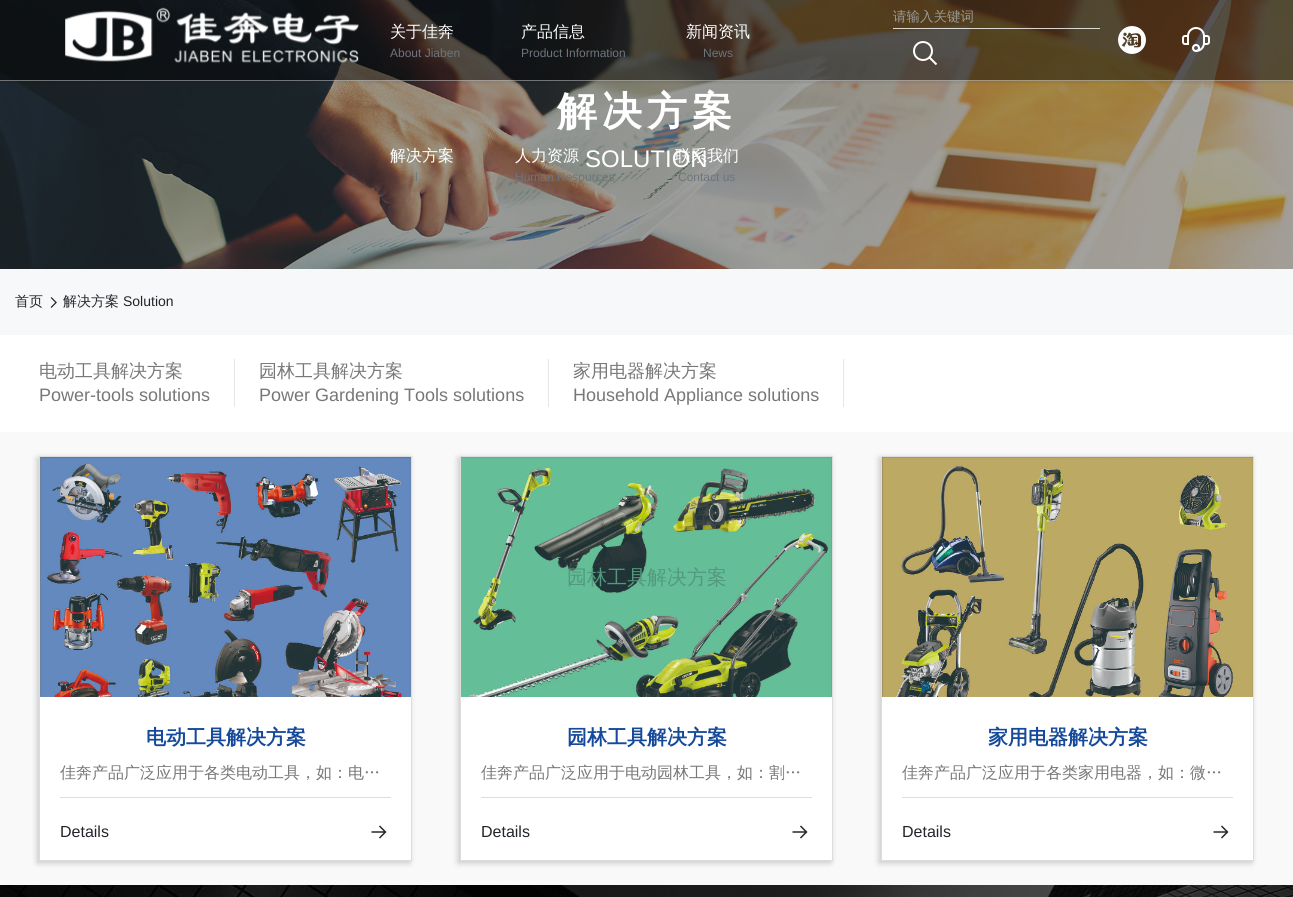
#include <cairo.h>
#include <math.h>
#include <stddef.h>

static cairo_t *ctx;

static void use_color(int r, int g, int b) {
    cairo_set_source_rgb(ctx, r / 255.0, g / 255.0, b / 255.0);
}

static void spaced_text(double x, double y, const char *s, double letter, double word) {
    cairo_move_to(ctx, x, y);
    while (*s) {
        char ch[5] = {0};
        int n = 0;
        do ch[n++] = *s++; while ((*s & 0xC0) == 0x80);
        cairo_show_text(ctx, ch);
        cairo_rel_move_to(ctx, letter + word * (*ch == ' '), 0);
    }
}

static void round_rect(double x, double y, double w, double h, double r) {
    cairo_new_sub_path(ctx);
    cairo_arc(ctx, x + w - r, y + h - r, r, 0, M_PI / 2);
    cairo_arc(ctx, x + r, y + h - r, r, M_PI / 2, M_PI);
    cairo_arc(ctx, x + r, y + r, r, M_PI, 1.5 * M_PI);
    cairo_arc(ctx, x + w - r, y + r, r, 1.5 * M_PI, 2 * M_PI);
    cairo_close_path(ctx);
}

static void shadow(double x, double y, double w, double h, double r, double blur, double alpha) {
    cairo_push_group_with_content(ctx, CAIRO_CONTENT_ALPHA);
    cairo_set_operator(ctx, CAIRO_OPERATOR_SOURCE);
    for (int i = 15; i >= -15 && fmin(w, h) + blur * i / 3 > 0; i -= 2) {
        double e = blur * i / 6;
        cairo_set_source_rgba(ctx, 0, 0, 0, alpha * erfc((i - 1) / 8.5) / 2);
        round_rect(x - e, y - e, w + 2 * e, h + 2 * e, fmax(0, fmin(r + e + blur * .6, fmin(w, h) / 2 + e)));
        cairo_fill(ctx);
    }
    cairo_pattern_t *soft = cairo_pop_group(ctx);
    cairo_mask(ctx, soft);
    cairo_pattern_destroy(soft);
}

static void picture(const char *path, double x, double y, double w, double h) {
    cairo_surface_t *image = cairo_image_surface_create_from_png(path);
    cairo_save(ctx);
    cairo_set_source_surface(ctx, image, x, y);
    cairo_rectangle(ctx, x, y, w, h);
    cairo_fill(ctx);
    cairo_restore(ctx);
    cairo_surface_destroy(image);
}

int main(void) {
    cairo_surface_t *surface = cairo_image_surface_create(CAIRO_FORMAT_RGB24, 1293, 897);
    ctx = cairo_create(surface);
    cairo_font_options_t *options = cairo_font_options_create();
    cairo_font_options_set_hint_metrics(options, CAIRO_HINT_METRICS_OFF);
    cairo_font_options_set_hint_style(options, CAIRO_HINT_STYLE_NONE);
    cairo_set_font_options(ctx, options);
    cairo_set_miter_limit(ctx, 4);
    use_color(255, 255, 255);
    cairo_paint(ctx);
    picture("img5.png", 0, 0, 1293, 269);
    cairo_set_source_rgba(ctx, 0, 0, 0, 0.35);
    cairo_rectangle(ctx, 0, 0, 1293, 81);
    cairo_fill(ctx);
    cairo_save(ctx);
    cairo_rectangle(ctx, 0, 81, 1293, 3);
    cairo_clip(ctx);
    use_color(0, 0, 0);
    shadow(0, 0, 1293, 81, 0, 2.5, 0.15);
    cairo_restore(ctx);
    cairo_set_source_rgba(ctx, 1, 1, 1, 0.4);
    cairo_rectangle(ctx, 0, 80, 1293, 1);
    cairo_fill(ctx);
    cairo_set_source_rgba(ctx, 0, 0, 0, 0.2);
    cairo_rectangle(ctx, 0, 0, 1293, 80);
    cairo_fill(ctx);
    picture("img1.png", 65, 7, 294, 56);
    cairo_set_source_rgba(ctx, 1, 1, 1, 0.8);
    cairo_rectangle(ctx, 893, 28, 207, 1);
    cairo_fill(ctx);
    cairo_select_font_face(ctx, "WenQuanYi Zen Hei Medium", CAIRO_FONT_SLANT_NORMAL, CAIRO_FONT_WEIGHT_NORMAL);
    cairo_set_font_size(ctx, 13.5);
    use_color(153, 153, 153);
    cairo_move_to(ctx, 893, 21);
    cairo_show_text(ctx, "请输入关键词");
    picture("img2.png", 913, 41, 25, 25);
    picture("img3.png", 1118, 26, 28, 28);
    picture("img4.png", 1182, 27, 28, 25);
    cairo_set_font_size(ctx, 16);
    use_color(255, 255, 255);
    cairo_move_to(ctx, 390, 37);
    cairo_show_text(ctx, "关于佳奔");
    cairo_select_font_face(ctx, "Liberation Sans", CAIRO_FONT_SLANT_NORMAL, CAIRO_FONT_WEIGHT_NORMAL);
    cairo_set_font_size(ctx, 12);
    use_color(108, 117, 125);
    cairo_move_to(ctx, 390, 57);
    cairo_show_text(ctx, "About Jiaben");
    cairo_select_font_face(ctx, "WenQuanYi Zen Hei Medium", CAIRO_FONT_SLANT_NORMAL, CAIRO_FONT_WEIGHT_NORMAL);
    cairo_set_font_size(ctx, 16);
    use_color(255, 255, 255);
    cairo_move_to(ctx, 521, 37);
    cairo_show_text(ctx, "产品信息");
    cairo_select_font_face(ctx, "Liberation Sans", CAIRO_FONT_SLANT_NORMAL, CAIRO_FONT_WEIGHT_NORMAL);
    cairo_set_font_size(ctx, 12);
    use_color(108, 117, 125);
    cairo_move_to(ctx, 521, 57);
    cairo_show_text(ctx, "Product Information");
    cairo_select_font_face(ctx, "WenQuanYi Zen Hei Medium", CAIRO_FONT_SLANT_NORMAL, CAIRO_FONT_WEIGHT_NORMAL);
    cairo_set_font_size(ctx, 16);
    use_color(255, 255, 255);
    cairo_move_to(ctx, 686, 37);
    cairo_show_text(ctx, "新闻资讯");
    cairo_select_font_face(ctx, "Liberation Sans", CAIRO_FONT_SLANT_NORMAL, CAIRO_FONT_WEIGHT_NORMAL);
    cairo_set_font_size(ctx, 12);
    use_color(108, 117, 125);
    cairo_move_to(ctx, 703, 57);
    cairo_show_text(ctx, "News");
    cairo_select_font_face(ctx, "WenQuanYi Zen Hei Medium", CAIRO_FONT_SLANT_NORMAL, CAIRO_FONT_WEIGHT_NORMAL);
    cairo_set_font_size(ctx, 16);
    use_color(255, 255, 255);
    cairo_move_to(ctx, 390, 161);
    cairo_show_text(ctx, "解决方案");
    cairo_select_font_face(ctx, "Liberation Sans", CAIRO_FONT_SLANT_NORMAL, CAIRO_FONT_WEIGHT_NORMAL);
    cairo_set_font_size(ctx, 12);
    use_color(108, 117, 125);
    cairo_move_to(ctx, 415, 181);
    cairo_show_text(ctx, "l");
    cairo_select_font_face(ctx, "WenQuanYi Zen Hei Medium", CAIRO_FONT_SLANT_NORMAL, CAIRO_FONT_WEIGHT_NORMAL);
    cairo_set_font_size(ctx, 16);
    use_color(255, 255, 255);
    cairo_move_to(ctx, 515, 161);
    cairo_show_text(ctx, "人力资源");
    cairo_select_font_face(ctx, "Liberation Sans", CAIRO_FONT_SLANT_NORMAL, CAIRO_FONT_WEIGHT_NORMAL);
    cairo_set_font_size(ctx, 12);
    use_color(108, 117, 125);
    cairo_move_to(ctx, 515, 181);
    cairo_show_text(ctx, "Human Resources");
    cairo_set_font_size(ctx, 24);
    use_color(255, 255, 255);
    cairo_move_to(ctx, 585, 167);
    cairo_show_text(ctx, "SOLUTION");
    cairo_select_font_face(ctx, "WenQuanYi Zen Hei Medium", CAIRO_FONT_SLANT_NORMAL, CAIRO_FONT_WEIGHT_NORMAL);
    cairo_set_font_size(ctx, 16);
    cairo_move_to(ctx, 675, 161);
    cairo_show_text(ctx, "联系我们");
    cairo_select_font_face(ctx, "Liberation Sans", CAIRO_FONT_SLANT_NORMAL, CAIRO_FONT_WEIGHT_NORMAL);
    cairo_set_font_size(ctx, 12);
    use_color(108, 117, 125);
    cairo_move_to(ctx, 678, 181);
    cairo_show_text(ctx, "Contact us");
    cairo_select_font_face(ctx, "WenQuanYi Zen Hei", CAIRO_FONT_SLANT_NORMAL, CAIRO_FONT_WEIGHT_BOLD);
    cairo_set_font_size(ctx, 40);
    use_color(255, 255, 255);
    spaced_text(557, 125, "解决方案", 5, 0);
    use_color(247, 248, 250);
    cairo_rectangle(ctx, 0, 269, 1293, 66);
    cairo_fill(ctx);
    cairo_select_font_face(ctx, "WenQuanYi Zen Hei Medium", CAIRO_FONT_SLANT_NORMAL, CAIRO_FONT_WEIGHT_NORMAL);
    cairo_set_font_size(ctx, 14);
    use_color(33, 37, 41);
    cairo_move_to(ctx, 15, 306);
    cairo_show_text(ctx, "首页");
    picture("img6.png", 50, 297, 7, 11);
    cairo_move_to(ctx, 63, 306);
    cairo_show_text(ctx, "解决方案");
    cairo_select_font_face(ctx, "Liberation Sans", CAIRO_FONT_SLANT_NORMAL, CAIRO_FONT_WEIGHT_NORMAL);
    cairo_move_to(ctx, 123, 306);
    cairo_show_text(ctx, "Solution");
    use_color(230, 230, 230);
    cairo_rectangle(ctx, 234, 359, 1, 48);
    cairo_fill(ctx);
    cairo_select_font_face(ctx, "WenQuanYi Zen Hei Medium", CAIRO_FONT_SLANT_NORMAL, CAIRO_FONT_WEIGHT_NORMAL);
    cairo_set_font_size(ctx, 18);
    use_color(119, 119, 119);
    cairo_move_to(ctx, 39, 377);
    cairo_show_text(ctx, "电动工具解决方案");
    cairo_select_font_face(ctx, "Liberation Sans", CAIRO_FONT_SLANT_NORMAL, CAIRO_FONT_WEIGHT_NORMAL);
    cairo_move_to(ctx, 39, 401);
    cairo_show_text(ctx, "Power-tools solutions");
    use_color(230, 230, 230);
    cairo_rectangle(ctx, 548, 359, 1, 48);
    cairo_fill(ctx);
    cairo_select_font_face(ctx, "WenQuanYi Zen Hei Medium", CAIRO_FONT_SLANT_NORMAL, CAIRO_FONT_WEIGHT_NORMAL);
    use_color(119, 119, 119);
    cairo_move_to(ctx, 259, 377);
    cairo_show_text(ctx, "园林工具解决方案");
    cairo_select_font_face(ctx, "Liberation Sans", CAIRO_FONT_SLANT_NORMAL, CAIRO_FONT_WEIGHT_NORMAL);
    cairo_move_to(ctx, 259, 401);
    cairo_show_text(ctx, "Power Gardening Tools solutions");
    use_color(230, 230, 230);
    cairo_rectangle(ctx, 843, 359, 1, 48);
    cairo_fill(ctx);
    cairo_select_font_face(ctx, "WenQuanYi Zen Hei Medium", CAIRO_FONT_SLANT_NORMAL, CAIRO_FONT_WEIGHT_NORMAL);
    use_color(119, 119, 119);
    cairo_move_to(ctx, 573, 377);
    cairo_show_text(ctx, "家用电器解决方案");
    cairo_select_font_face(ctx, "Liberation Sans", CAIRO_FONT_SLANT_NORMAL, CAIRO_FONT_WEIGHT_NORMAL);
    cairo_move_to(ctx, 573, 401);
    cairo_show_text(ctx, "Household Appliance solutions");
    use_color(249, 249, 249);
    cairo_rectangle(ctx, 0, 432, 1293, 453);
    cairo_fill(ctx);
    use_color(0, 0, 0);
    shadow(37, 458, 373, 405, 0, 3, 0.2);
    cairo_rectangle(ctx, 39.5, 456.5, 372, 404);
    use_color(221, 221, 221);
    cairo_set_line_width(ctx, 1);
    cairo_stroke(ctx);
    picture("img7.png", 40, 457, 371, 240);
    use_color(255, 255, 255);
    cairo_rectangle(ctx, 40, 697, 371, 163);
    cairo_fill(ctx);
    cairo_select_font_face(ctx, "WenQuanYi Zen Hei", CAIRO_FONT_SLANT_NORMAL, CAIRO_FONT_WEIGHT_BOLD);
    cairo_set_font_size(ctx, 20);
    use_color(21, 73, 154);
    cairo_move_to(ctx, 146, 744);
    cairo_show_text(ctx, "电动工具解决方案");
    use_color(221, 221, 221);
    cairo_rectangle(ctx, 60, 797, 331, 1);
    cairo_fill(ctx);
    cairo_select_font_face(ctx, "WenQuanYi Zen Hei Medium", CAIRO_FONT_SLANT_NORMAL, CAIRO_FONT_WEIGHT_NORMAL);
    cairo_set_font_size(ctx, 16);
    use_color(119, 119, 119);
    cairo_move_to(ctx, 60, 778);
    cairo_show_text(ctx, "佳奔产品广泛应用于各类电动工具，如：电…");
    cairo_select_font_face(ctx, "Liberation Sans", CAIRO_FONT_SLANT_NORMAL, CAIRO_FONT_WEIGHT_NORMAL);
    use_color(33, 37, 41);
    cairo_move_to(ctx, 60, 837);
    cairo_show_text(ctx, "Details");
    picture("img8.png", 371, 825, 16, 14);
    use_color(0, 0, 0);
    shadow(458, 458, 373, 405, 0, 3, 0.2);
    cairo_rectangle(ctx, 460.5, 456.5, 372, 404);
    use_color(221, 221, 221);
    cairo_stroke(ctx);
    picture("img9.png", 461, 457, 371, 240);
    cairo_select_font_face(ctx, "WenQuanYi Zen Hei Medium", CAIRO_FONT_SLANT_NORMAL, CAIRO_FONT_WEIGHT_NORMAL);
    cairo_set_font_size(ctx, 20);
    use_color(82, 153, 126);
    cairo_move_to(ctx, 567, 584);
    cairo_show_text(ctx, "园林工具解决方案");
    use_color(255, 255, 255);
    cairo_rectangle(ctx, 461, 697, 371, 163);
    cairo_fill(ctx);
    cairo_select_font_face(ctx, "WenQuanYi Zen Hei", CAIRO_FONT_SLANT_NORMAL, CAIRO_FONT_WEIGHT_BOLD);
    use_color(21, 73, 154);
    cairo_move_to(ctx, 567, 744);
    cairo_show_text(ctx, "园林工具解决方案");
    use_color(221, 221, 221);
    cairo_rectangle(ctx, 481, 797, 331, 1);
    cairo_fill(ctx);
    cairo_select_font_face(ctx, "WenQuanYi Zen Hei Medium", CAIRO_FONT_SLANT_NORMAL, CAIRO_FONT_WEIGHT_NORMAL);
    cairo_set_font_size(ctx, 16);
    use_color(119, 119, 119);
    cairo_move_to(ctx, 481, 778);
    cairo_show_text(ctx, "佳奔产品广泛应用于电动园林工具，如：割…");
    cairo_select_font_face(ctx, "Liberation Sans", CAIRO_FONT_SLANT_NORMAL, CAIRO_FONT_WEIGHT_NORMAL);
    use_color(33, 37, 41);
    cairo_move_to(ctx, 481, 837);
    cairo_show_text(ctx, "Details");
    picture("img8.png", 792, 825, 16, 14);
    use_color(0, 0, 0);
    shadow(879, 458, 373, 405, 0, 3, 0.2);
    cairo_rectangle(ctx, 881.5, 456.5, 372, 404);
    use_color(221, 221, 221);
    cairo_stroke(ctx);
    picture("img10.png", 882, 457, 371, 240);
    use_color(255, 255, 255);
    cairo_rectangle(ctx, 882, 697, 371, 163);
    cairo_fill(ctx);
    cairo_select_font_face(ctx, "WenQuanYi Zen Hei", CAIRO_FONT_SLANT_NORMAL, CAIRO_FONT_WEIGHT_BOLD);
    cairo_set_font_size(ctx, 20);
    use_color(21, 73, 154);
    cairo_move_to(ctx, 988, 744);
    cairo_show_text(ctx, "家用电器解决方案");
    use_color(221, 221, 221);
    cairo_rectangle(ctx, 902, 797, 331, 1);
    cairo_fill(ctx);
    cairo_select_font_face(ctx, "WenQuanYi Zen Hei Medium", CAIRO_FONT_SLANT_NORMAL, CAIRO_FONT_WEIGHT_NORMAL);
    cairo_set_font_size(ctx, 16);
    use_color(119, 119, 119);
    cairo_move_to(ctx, 902, 778);
    cairo_show_text(ctx, "佳奔产品广泛应用于各类家用电器，如：微…");
    cairo_select_font_face(ctx, "Liberation Sans", CAIRO_FONT_SLANT_NORMAL, CAIRO_FONT_WEIGHT_NORMAL);
    use_color(33, 37, 41);
    cairo_move_to(ctx, 902, 837);
    cairo_show_text(ctx, "Details");
    picture("img8.png", 1213, 825, 16, 14);
    picture("img11.png", 0, 885, 1293, 12);
    cairo_surface_write_to_png(surface, "result.png");
    cairo_font_options_destroy(options);
    cairo_destroy(ctx);
    cairo_surface_destroy(surface);
    return 0;
}
